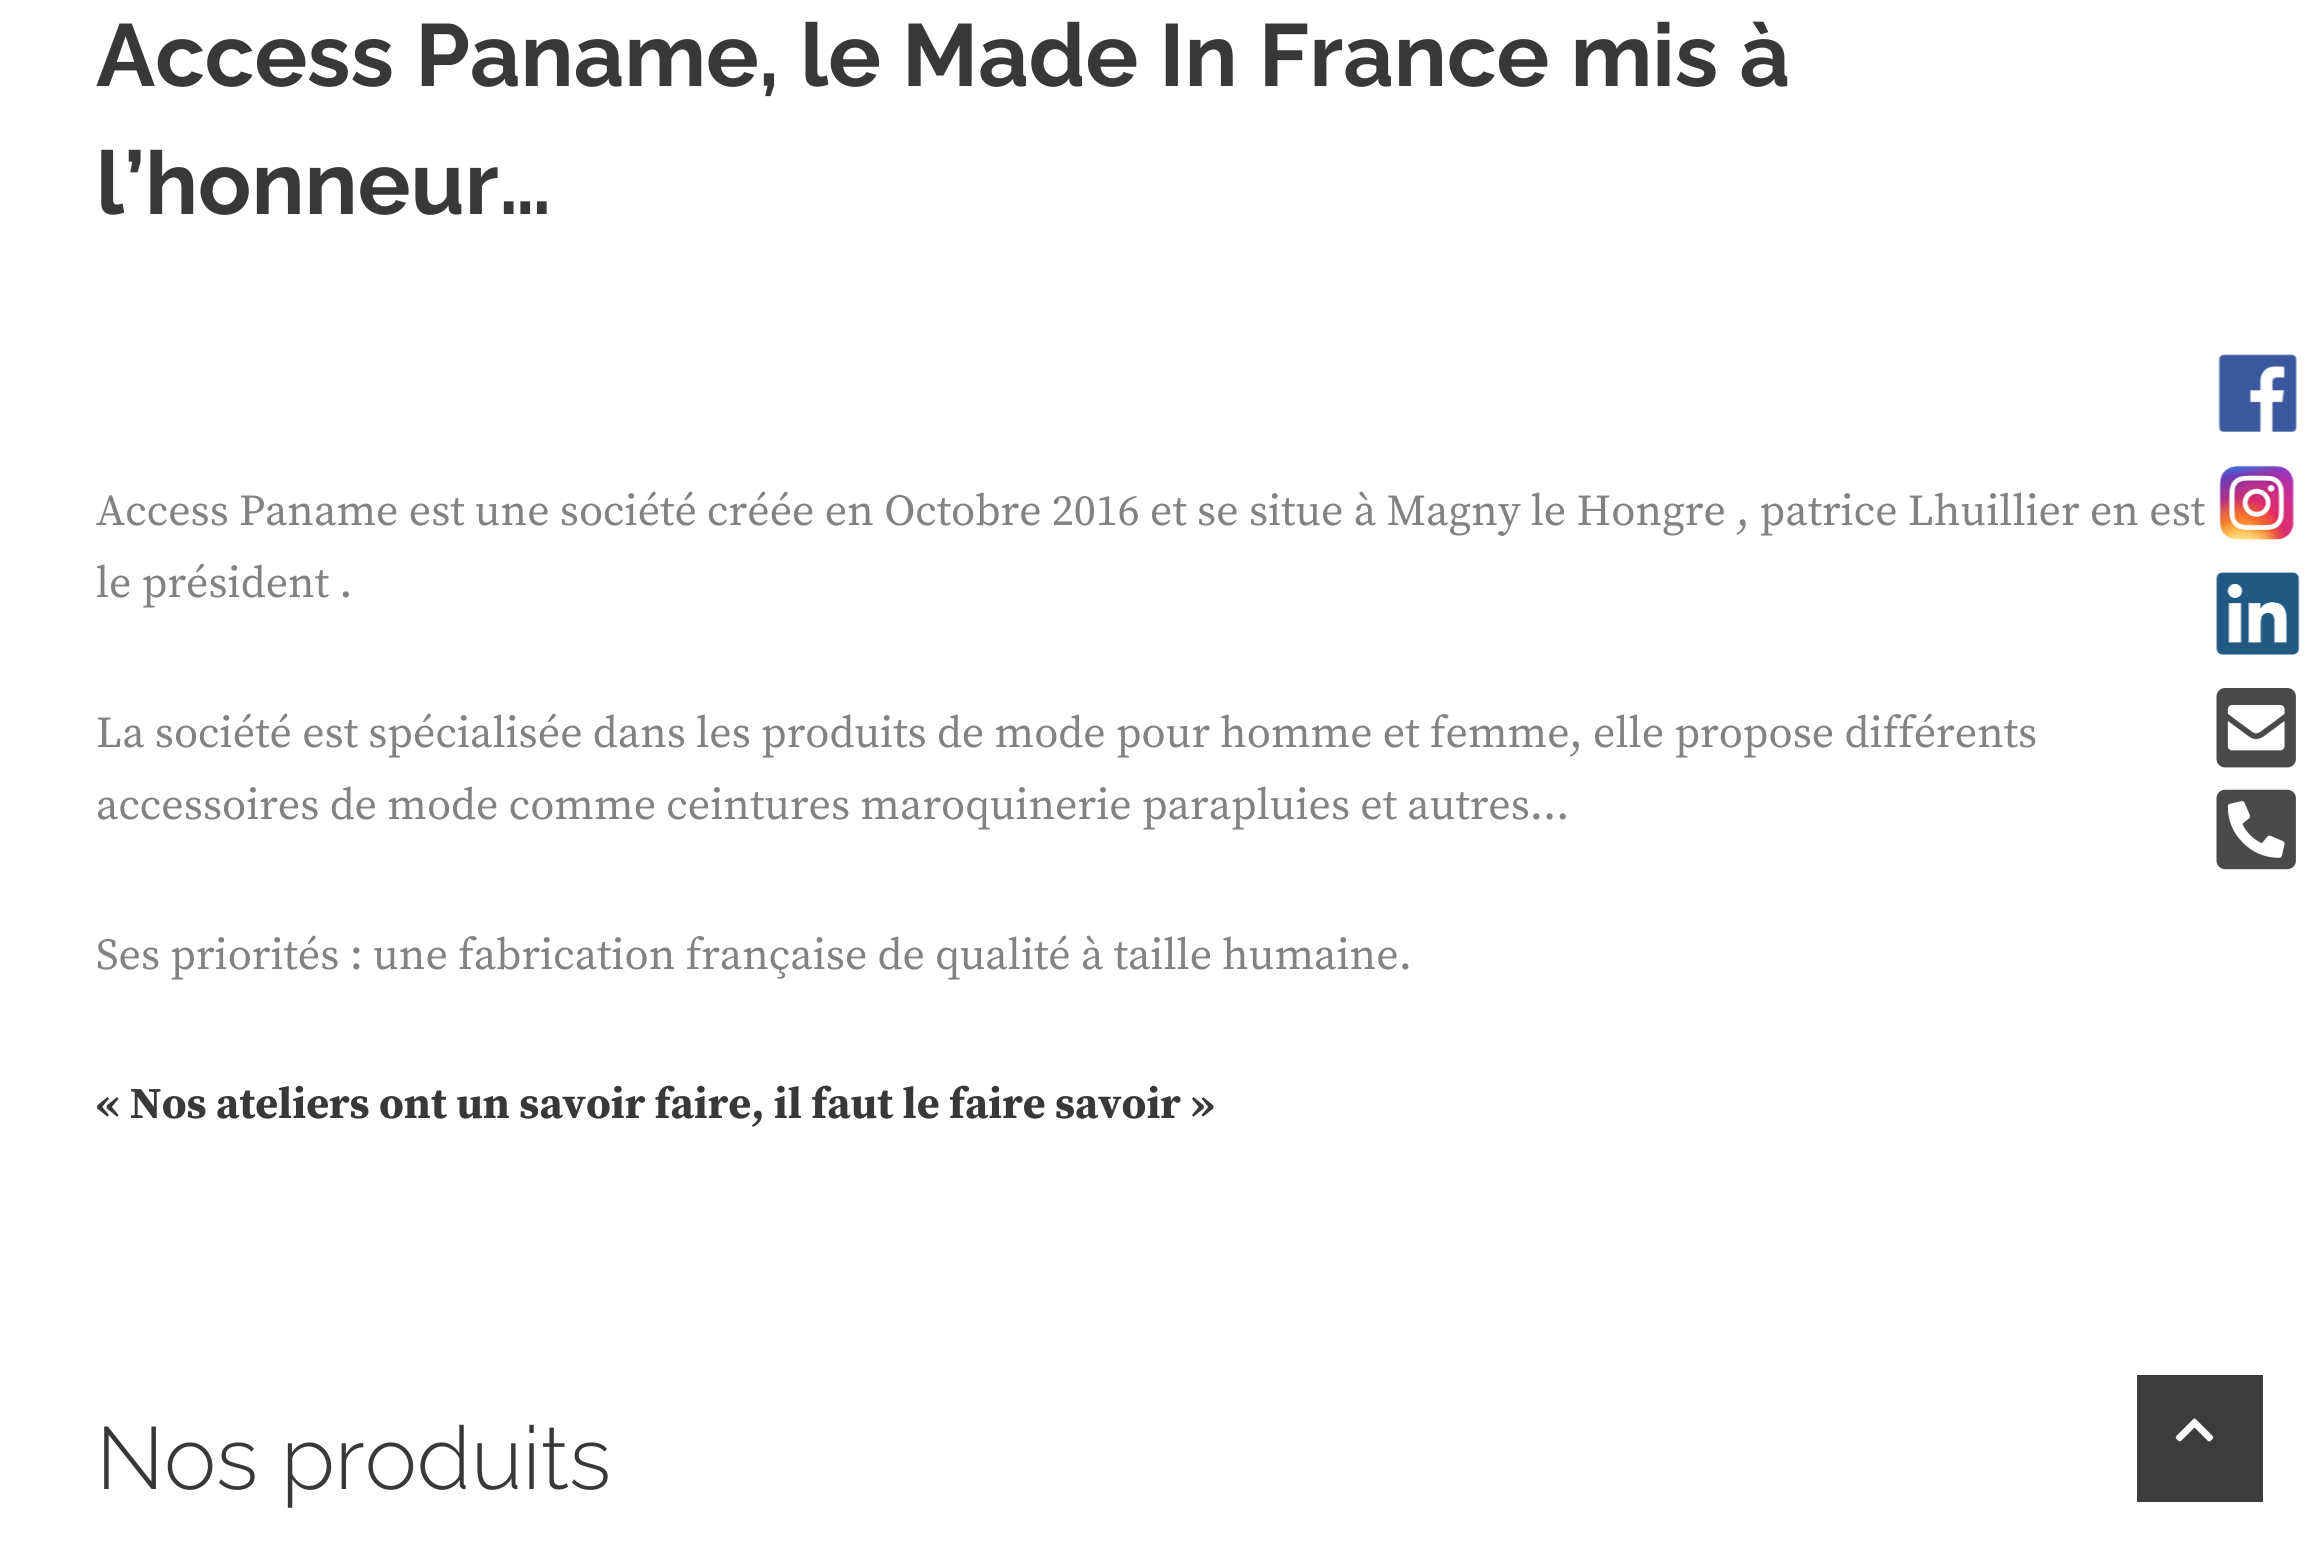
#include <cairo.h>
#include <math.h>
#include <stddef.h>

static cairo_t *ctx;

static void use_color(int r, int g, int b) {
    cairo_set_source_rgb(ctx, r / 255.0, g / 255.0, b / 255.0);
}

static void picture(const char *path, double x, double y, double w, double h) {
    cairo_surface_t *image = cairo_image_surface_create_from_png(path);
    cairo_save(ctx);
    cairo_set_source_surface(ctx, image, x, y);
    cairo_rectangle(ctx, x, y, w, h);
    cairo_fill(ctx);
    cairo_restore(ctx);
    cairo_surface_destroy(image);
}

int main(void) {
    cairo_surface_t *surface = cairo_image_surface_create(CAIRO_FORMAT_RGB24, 2318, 1555);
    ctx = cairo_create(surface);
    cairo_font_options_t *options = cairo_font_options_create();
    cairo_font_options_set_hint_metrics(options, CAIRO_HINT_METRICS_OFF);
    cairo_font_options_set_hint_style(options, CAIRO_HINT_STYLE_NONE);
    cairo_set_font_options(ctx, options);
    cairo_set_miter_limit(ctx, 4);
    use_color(255, 255, 255);
    cairo_paint(ctx);
    cairo_select_font_face(ctx, "Raleway", CAIRO_FONT_SLANT_NORMAL, CAIRO_FONT_WEIGHT_BOLD);
    cairo_set_font_size(ctx, 88);
    use_color(56, 56, 56);
    cairo_move_to(ctx, 96, 86);
    cairo_show_text(ctx, "Access Paname, le Made In France mis à");
    cairo_move_to(ctx, 96, 214);
    cairo_show_text(ctx, "l’honneur…");
    cairo_select_font_face(ctx, "Source Serif Pro", CAIRO_FONT_SLANT_NORMAL, CAIRO_FONT_WEIGHT_NORMAL);
    cairo_set_font_size(ctx, 44);
    use_color(130, 130, 130);
    cairo_move_to(ctx, 96, 525);
    cairo_show_text(ctx, "Access Paname est une société créée en Octobre 2016 et se situe à Magny le Hongre , patrice Lhuillier en est");
    cairo_move_to(ctx, 96, 597);
    cairo_show_text(ctx, "le président .");
    cairo_move_to(ctx, 96, 747);
    cairo_show_text(ctx, "La société est spécialisée dans les produits de mode pour homme et femme, elle propose différents");
    cairo_move_to(ctx, 96, 819);
    cairo_show_text(ctx, "accessoires de mode comme ceintures maroquinerie parapluies et autres…");
    cairo_move_to(ctx, 96, 969);
    cairo_show_text(ctx, "Ses priorités : une fabrication française de qualité à taille humaine.");
    cairo_select_font_face(ctx, "Source Serif Pro", CAIRO_FONT_SLANT_NORMAL, CAIRO_FONT_WEIGHT_BOLD);
    use_color(56, 56, 56);
    cairo_move_to(ctx, 96, 1118);
    cairo_show_text(ctx, "« Nos ateliers ont un savoir faire, il faut le faire savoir »");
    cairo_select_font_face(ctx, "Raleway Light", CAIRO_FONT_SLANT_NORMAL, CAIRO_FONT_WEIGHT_NORMAL);
    cairo_set_font_size(ctx, 88);
    cairo_move_to(ctx, 96, 1489);
    cairo_show_text(ctx, "Nos produits");
    picture("img1.png", 2218, 354, 79, 78);
    picture("img2.png", 2219, 466, 75, 74);
    picture("img3.png", 2216, 572, 84, 83);
    picture("img4.png", 2216, 688, 80, 80);
    picture("img5.png", 2216, 789, 80, 81);
    use_color(60, 60, 60);
    cairo_rectangle(ctx, 2137, 1375, 126, 127);
    cairo_fill(ctx);
    picture("img6.png", 2175, 1418, 39, 24);
    cairo_surface_write_to_png(surface, "result.png");
    cairo_font_options_destroy(options);
    cairo_destroy(ctx);
    cairo_surface_destroy(surface);
    return 0;
}
